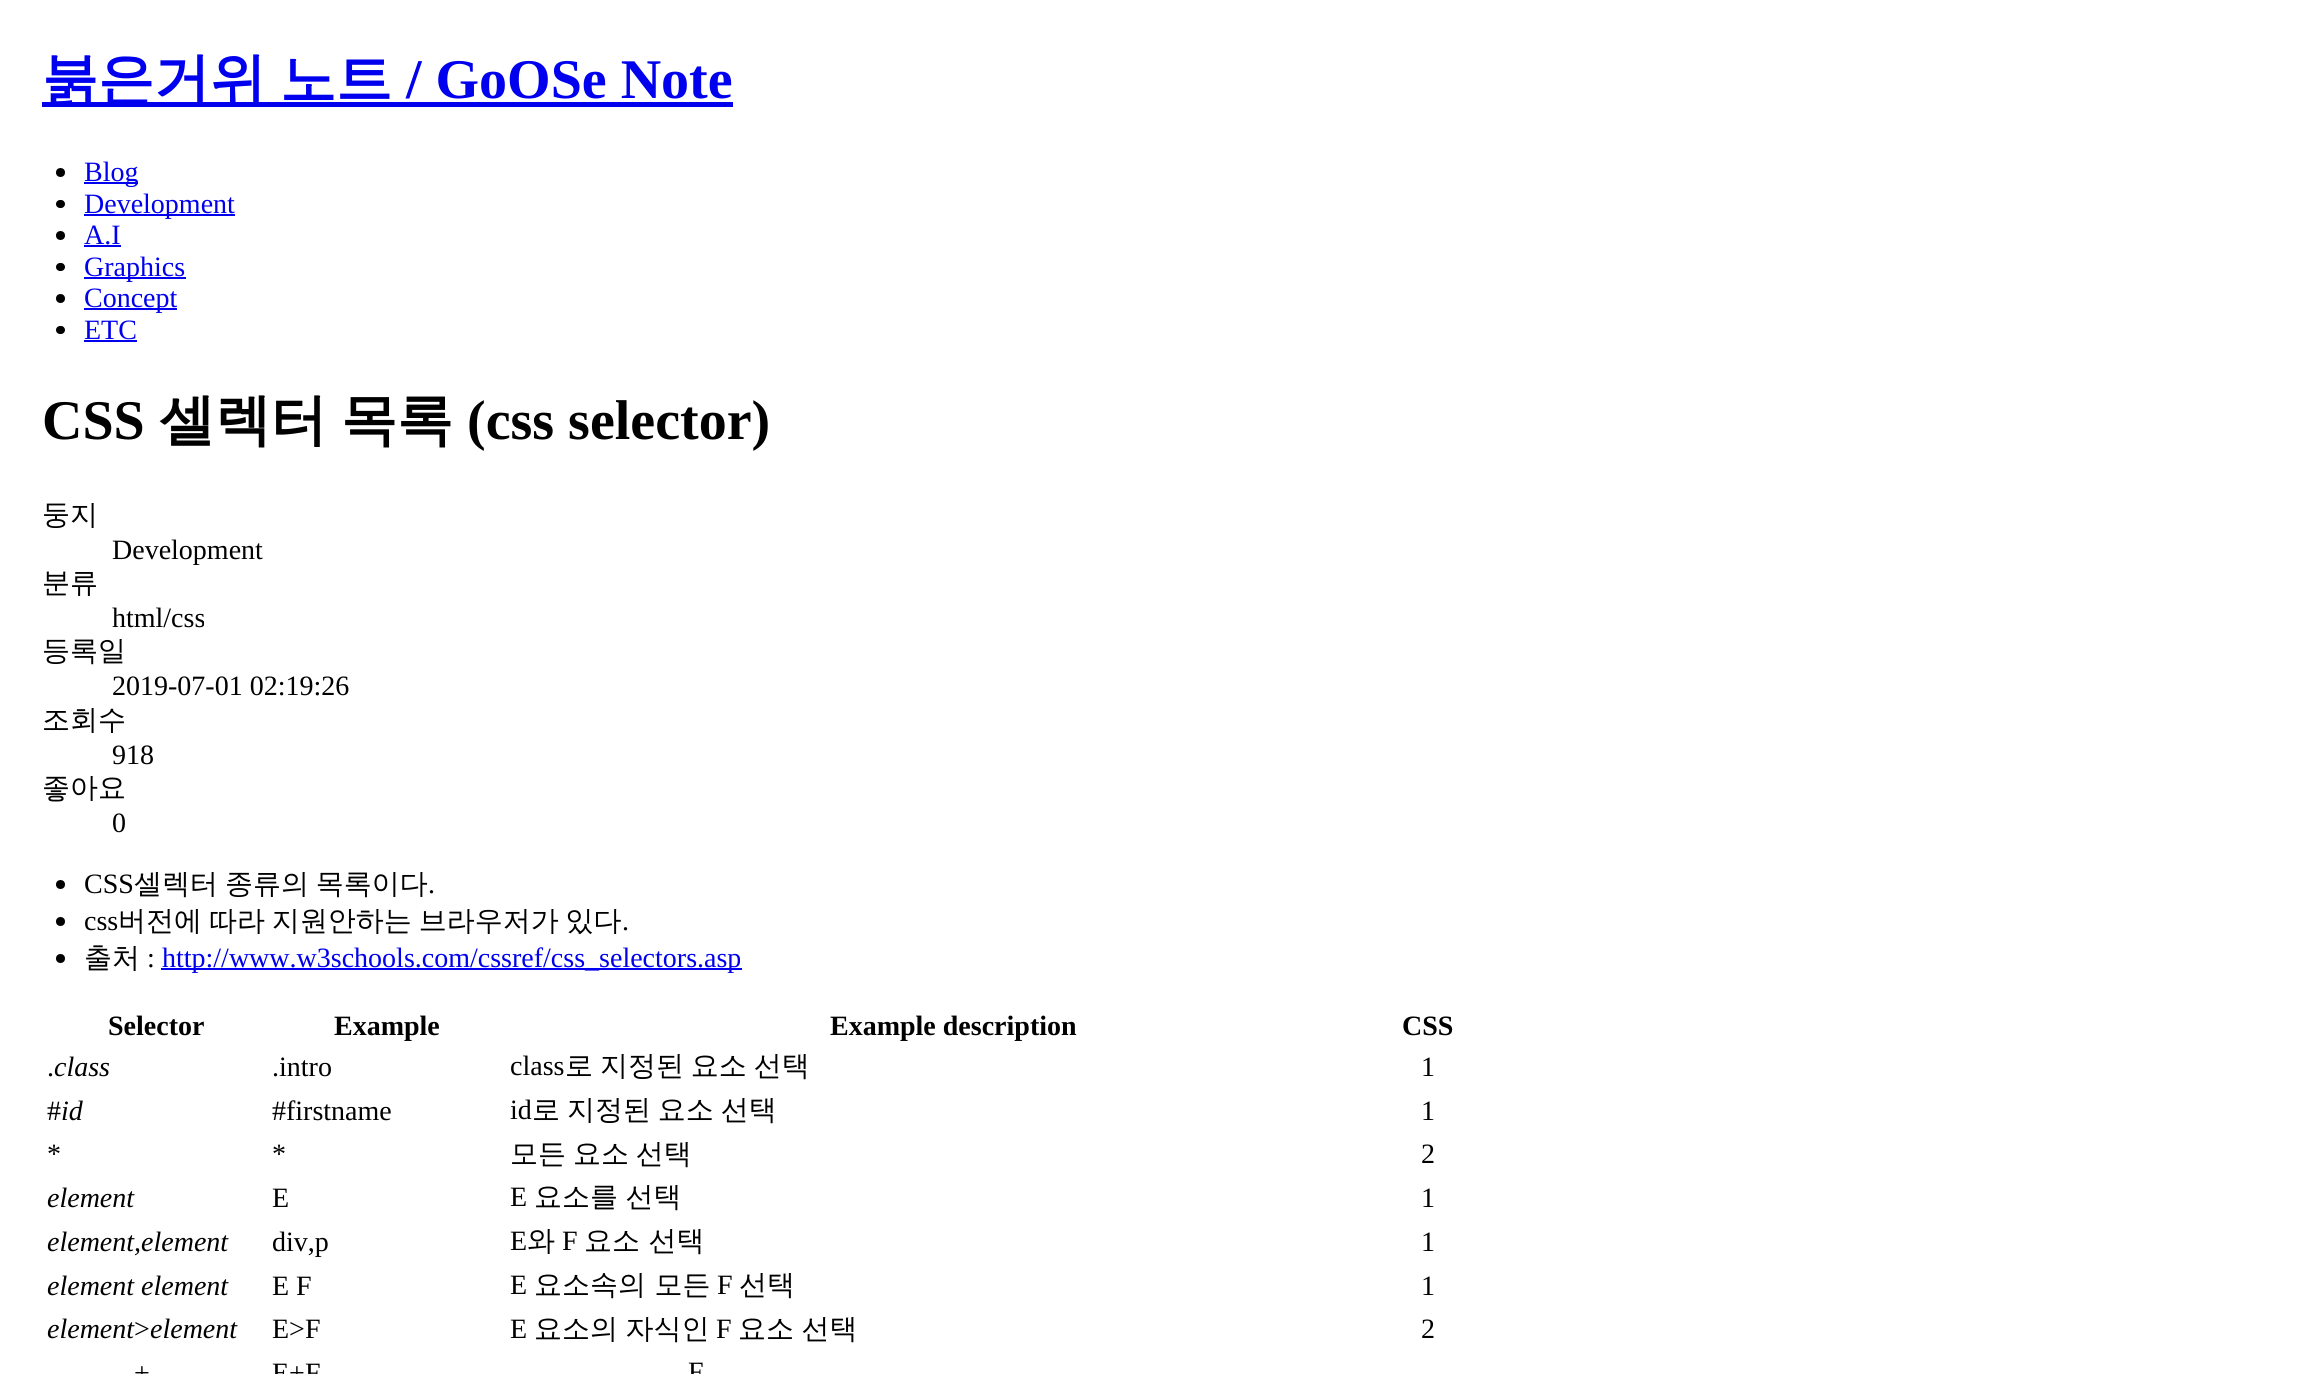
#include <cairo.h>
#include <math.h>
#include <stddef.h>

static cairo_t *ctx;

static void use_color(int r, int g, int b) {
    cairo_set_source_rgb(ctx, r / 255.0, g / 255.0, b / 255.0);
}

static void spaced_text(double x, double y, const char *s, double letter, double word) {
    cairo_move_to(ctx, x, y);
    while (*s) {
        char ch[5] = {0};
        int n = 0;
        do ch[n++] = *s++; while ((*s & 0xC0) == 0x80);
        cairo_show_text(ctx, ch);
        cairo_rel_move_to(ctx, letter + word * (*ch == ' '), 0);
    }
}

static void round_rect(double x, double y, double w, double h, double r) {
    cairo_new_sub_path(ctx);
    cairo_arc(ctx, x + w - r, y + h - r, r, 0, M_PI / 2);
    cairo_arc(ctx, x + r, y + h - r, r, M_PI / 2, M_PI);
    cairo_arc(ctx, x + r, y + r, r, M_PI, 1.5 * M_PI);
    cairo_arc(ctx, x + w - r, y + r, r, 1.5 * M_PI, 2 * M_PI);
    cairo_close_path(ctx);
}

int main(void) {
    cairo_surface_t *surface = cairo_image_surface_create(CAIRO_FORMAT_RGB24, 2322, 1374);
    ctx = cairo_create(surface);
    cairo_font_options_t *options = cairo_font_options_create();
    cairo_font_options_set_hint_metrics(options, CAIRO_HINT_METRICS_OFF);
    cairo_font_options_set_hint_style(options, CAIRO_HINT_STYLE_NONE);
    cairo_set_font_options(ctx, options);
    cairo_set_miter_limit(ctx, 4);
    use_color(255, 255, 255);
    cairo_paint(ctx);
    use_color(0, 0, 238);
    cairo_rectangle(ctx, 42, 102, 691, 5);
    cairo_fill(ctx);
    cairo_select_font_face(ctx, "WenQuanYi Zen Hei", CAIRO_FONT_SLANT_NORMAL, CAIRO_FONT_WEIGHT_BOLD);
    cairo_set_font_size(ctx, 56);
    cairo_move_to(ctx, 42, 98);
    cairo_show_text(ctx, "붉은거위");
    cairo_move_to(ctx, 280, 98);
    cairo_show_text(ctx, "노트");
    cairo_select_font_face(ctx, "Liberation Serif", CAIRO_FONT_SLANT_NORMAL, CAIRO_FONT_WEIGHT_BOLD);
    cairo_move_to(ctx, 406, 98);
    cairo_show_text(ctx, "/ GoOSe Note");
    use_color(0, 0, 0);
    cairo_new_path(ctx);
    cairo_arc(ctx, 60.5, 172.5, 4.5, 0, 2 * M_PI);
    cairo_fill(ctx);
    use_color(0, 0, 238);
    cairo_rectangle(ctx, 84, 182, 54, 2);
    cairo_fill(ctx);
    cairo_select_font_face(ctx, "Liberation Serif", CAIRO_FONT_SLANT_NORMAL, CAIRO_FONT_WEIGHT_NORMAL);
    cairo_set_font_size(ctx, 28);
    cairo_move_to(ctx, 84, 181);
    cairo_show_text(ctx, "Blog");
    use_color(0, 0, 0);
    round_rect(56, 200, 9, 8, 4);
    cairo_fill(ctx);
    use_color(0, 0, 238);
    cairo_rectangle(ctx, 84, 214, 151, 2);
    cairo_fill(ctx);
    cairo_move_to(ctx, 84, 213);
    cairo_show_text(ctx, "Development");
    use_color(0, 0, 0);
    cairo_new_path(ctx);
    cairo_arc(ctx, 60.5, 235.5, 4.5, 0, 2 * M_PI);
    cairo_fill(ctx);
    use_color(0, 0, 238);
    cairo_move_to(ctx, 84, 244);
    cairo_show_text(ctx, "A.I");
    cairo_rectangle(ctx, 84, 245, 37, 2);
    cairo_fill(ctx);
    use_color(0, 0, 0);
    round_rect(56, 263, 9, 8, 4);
    cairo_fill(ctx);
    use_color(0, 0, 238);
    cairo_rectangle(ctx, 84, 277, 102, 2);
    cairo_fill(ctx);
    cairo_move_to(ctx, 84, 276);
    cairo_show_text(ctx, "Graphics");
    use_color(0, 0, 0);
    cairo_new_path(ctx);
    cairo_arc(ctx, 60.5, 298.5, 4.5, 0, 2 * M_PI);
    cairo_fill(ctx);
    use_color(0, 0, 238);
    cairo_rectangle(ctx, 84, 308, 93, 2);
    cairo_fill(ctx);
    cairo_move_to(ctx, 84, 307);
    cairo_show_text(ctx, "Concept");
    use_color(0, 0, 0);
    round_rect(56, 326, 9, 8, 4);
    cairo_fill(ctx);
    use_color(0, 0, 238);
    cairo_move_to(ctx, 84, 339);
    cairo_show_text(ctx, "ETC");
    cairo_rectangle(ctx, 84, 340, 53, 2);
    cairo_fill(ctx);
    cairo_select_font_face(ctx, "Liberation Serif", CAIRO_FONT_SLANT_NORMAL, CAIRO_FONT_WEIGHT_BOLD);
    cairo_set_font_size(ctx, 56);
    use_color(0, 0, 0);
    cairo_move_to(ctx, 42, 439);
    cairo_show_text(ctx, "CSS");
    cairo_select_font_face(ctx, "WenQuanYi Zen Hei", CAIRO_FONT_SLANT_NORMAL, CAIRO_FONT_WEIGHT_BOLD);
    cairo_move_to(ctx, 159, 439);
    cairo_show_text(ctx, "셀렉터");
    cairo_move_to(ctx, 341, 439);
    cairo_show_text(ctx, "목록");
    cairo_select_font_face(ctx, "Liberation Serif", CAIRO_FONT_SLANT_NORMAL, CAIRO_FONT_WEIGHT_BOLD);
    cairo_move_to(ctx, 467, 439);
    cairo_show_text(ctx, "(css selector)");
    cairo_select_font_face(ctx, "WenQuanYi Zen Hei Medium", CAIRO_FONT_SLANT_NORMAL, CAIRO_FONT_WEIGHT_NORMAL);
    cairo_set_font_size(ctx, 28);
    cairo_move_to(ctx, 42, 524);
    cairo_show_text(ctx, "둥지");
    cairo_select_font_face(ctx, "Liberation Serif", CAIRO_FONT_SLANT_NORMAL, CAIRO_FONT_WEIGHT_NORMAL);
    cairo_move_to(ctx, 112, 559);
    cairo_show_text(ctx, "Development");
    cairo_select_font_face(ctx, "WenQuanYi Zen Hei Medium", CAIRO_FONT_SLANT_NORMAL, CAIRO_FONT_WEIGHT_NORMAL);
    cairo_move_to(ctx, 42, 592);
    cairo_show_text(ctx, "분류");
    cairo_select_font_face(ctx, "Liberation Serif", CAIRO_FONT_SLANT_NORMAL, CAIRO_FONT_WEIGHT_NORMAL);
    cairo_move_to(ctx, 112, 627);
    cairo_show_text(ctx, "html/css");
    cairo_select_font_face(ctx, "WenQuanYi Zen Hei Medium", CAIRO_FONT_SLANT_NORMAL, CAIRO_FONT_WEIGHT_NORMAL);
    cairo_move_to(ctx, 42, 660);
    cairo_show_text(ctx, "등록일");
    cairo_select_font_face(ctx, "Liberation Serif", CAIRO_FONT_SLANT_NORMAL, CAIRO_FONT_WEIGHT_NORMAL);
    cairo_move_to(ctx, 112, 695);
    cairo_show_text(ctx, "2019-07-01 02:19:26");
    cairo_select_font_face(ctx, "WenQuanYi Zen Hei Medium", CAIRO_FONT_SLANT_NORMAL, CAIRO_FONT_WEIGHT_NORMAL);
    cairo_move_to(ctx, 42, 729);
    cairo_show_text(ctx, "조회수");
    cairo_select_font_face(ctx, "Liberation Serif", CAIRO_FONT_SLANT_NORMAL, CAIRO_FONT_WEIGHT_NORMAL);
    cairo_move_to(ctx, 112, 764);
    cairo_show_text(ctx, "918");
    cairo_select_font_face(ctx, "WenQuanYi Zen Hei Medium", CAIRO_FONT_SLANT_NORMAL, CAIRO_FONT_WEIGHT_NORMAL);
    cairo_move_to(ctx, 42, 797);
    cairo_show_text(ctx, "좋아요");
    cairo_select_font_face(ctx, "Liberation Serif", CAIRO_FONT_SLANT_NORMAL, CAIRO_FONT_WEIGHT_NORMAL);
    cairo_move_to(ctx, 112, 832);
    cairo_show_text(ctx, "0");
    cairo_new_path(ctx);
    cairo_arc(ctx, 60.5, 884.5, 4.5, 0, 2 * M_PI);
    cairo_fill(ctx);
    cairo_move_to(ctx, 84, 893);
    cairo_show_text(ctx, "CSS");
    cairo_select_font_face(ctx, "WenQuanYi Zen Hei Medium", CAIRO_FONT_SLANT_NORMAL, CAIRO_FONT_WEIGHT_NORMAL);
    spaced_text(134, 893, "셀렉터 종류의 목록이다", 0, -1.5);
    cairo_select_font_face(ctx, "Liberation Serif", CAIRO_FONT_SLANT_NORMAL, CAIRO_FONT_WEIGHT_NORMAL);
    cairo_move_to(ctx, 428, 893);
    cairo_show_text(ctx, ".");
    cairo_new_path(ctx);
    cairo_arc(ctx, 60.5, 921.5, 4.5, 0, 2 * M_PI);
    cairo_fill(ctx);
    cairo_move_to(ctx, 84, 930);
    cairo_show_text(ctx, "css");
    cairo_select_font_face(ctx, "WenQuanYi Zen Hei Medium", CAIRO_FONT_SLANT_NORMAL, CAIRO_FONT_WEIGHT_NORMAL);
    spaced_text(118, 930, "버전에 따라 지원안하는 브라우저가 있다", 0, -1.5);
    cairo_select_font_face(ctx, "Liberation Serif", CAIRO_FONT_SLANT_NORMAL, CAIRO_FONT_WEIGHT_NORMAL);
    cairo_move_to(ctx, 622, 930);
    cairo_show_text(ctx, ".");
    cairo_new_path(ctx);
    cairo_arc(ctx, 60.5, 958.5, 4.5, 0, 2 * M_PI);
    cairo_fill(ctx);
    cairo_select_font_face(ctx, "WenQuanYi Zen Hei Medium", CAIRO_FONT_SLANT_NORMAL, CAIRO_FONT_WEIGHT_NORMAL);
    cairo_move_to(ctx, 84, 967);
    cairo_show_text(ctx, "출처");
    cairo_select_font_face(ctx, "Liberation Serif", CAIRO_FONT_SLANT_NORMAL, CAIRO_FONT_WEIGHT_NORMAL);
    cairo_move_to(ctx, 147, 967);
    cairo_show_text(ctx, ":");
    use_color(0, 0, 238);
    cairo_rectangle(ctx, 161, 968, 581, 2);
    cairo_fill(ctx);
    cairo_move_to(ctx, 162, 967);
    cairo_show_text(ctx, "http://www.w3schools.com/cssref/css_selectors.asp");
    cairo_select_font_face(ctx, "Liberation Serif", CAIRO_FONT_SLANT_NORMAL, CAIRO_FONT_WEIGHT_BOLD);
    use_color(0, 0, 0);
    cairo_move_to(ctx, 108, 1035);
    cairo_show_text(ctx, "Selector");
    cairo_move_to(ctx, 334, 1035);
    cairo_show_text(ctx, "Example");
    cairo_move_to(ctx, 830, 1035);
    cairo_show_text(ctx, "Example description");
    cairo_move_to(ctx, 1402, 1035);
    cairo_show_text(ctx, "CSS");
    cairo_select_font_face(ctx, "Liberation Serif", CAIRO_FONT_SLANT_NORMAL, CAIRO_FONT_WEIGHT_NORMAL);
    cairo_move_to(ctx, 47, 1076);
    cairo_show_text(ctx, ".");
    cairo_select_font_face(ctx, "Liberation Serif", CAIRO_FONT_SLANT_ITALIC, CAIRO_FONT_WEIGHT_NORMAL);
    cairo_move_to(ctx, 54, 1076);
    cairo_show_text(ctx, "class");
    cairo_select_font_face(ctx, "Liberation Serif", CAIRO_FONT_SLANT_NORMAL, CAIRO_FONT_WEIGHT_NORMAL);
    cairo_move_to(ctx, 272, 1076);
    cairo_show_text(ctx, ".intro");
    cairo_move_to(ctx, 510, 1075);
    cairo_show_text(ctx, "class");
    cairo_select_font_face(ctx, "WenQuanYi Zen Hei Medium", CAIRO_FONT_SLANT_NORMAL, CAIRO_FONT_WEIGHT_NORMAL);
    spaced_text(565, 1075, "로 지정된 요소 선택", 0, -1.5);
    cairo_select_font_face(ctx, "Liberation Serif", CAIRO_FONT_SLANT_NORMAL, CAIRO_FONT_WEIGHT_NORMAL);
    cairo_move_to(ctx, 1421, 1076);
    cairo_show_text(ctx, "1");
    cairo_move_to(ctx, 47, 1120);
    cairo_show_text(ctx, "#");
    cairo_select_font_face(ctx, "Liberation Serif", CAIRO_FONT_SLANT_ITALIC, CAIRO_FONT_WEIGHT_NORMAL);
    cairo_move_to(ctx, 61, 1120);
    cairo_show_text(ctx, "id");
    cairo_select_font_face(ctx, "Liberation Serif", CAIRO_FONT_SLANT_NORMAL, CAIRO_FONT_WEIGHT_NORMAL);
    cairo_move_to(ctx, 272, 1120);
    cairo_show_text(ctx, "#firstname");
    cairo_move_to(ctx, 510, 1119);
    cairo_show_text(ctx, "id");
    cairo_select_font_face(ctx, "WenQuanYi Zen Hei Medium", CAIRO_FONT_SLANT_NORMAL, CAIRO_FONT_WEIGHT_NORMAL);
    spaced_text(532, 1119, "로 지정된 요소 선택", 0, -1.5);
    cairo_select_font_face(ctx, "Liberation Serif", CAIRO_FONT_SLANT_NORMAL, CAIRO_FONT_WEIGHT_NORMAL);
    cairo_move_to(ctx, 1421, 1120);
    cairo_show_text(ctx, "1");
    cairo_move_to(ctx, 47, 1163);
    cairo_show_text(ctx, "*");
    cairo_move_to(ctx, 272, 1163);
    cairo_show_text(ctx, "*");
    cairo_select_font_face(ctx, "WenQuanYi Zen Hei Medium", CAIRO_FONT_SLANT_NORMAL, CAIRO_FONT_WEIGHT_NORMAL);
    spaced_text(510, 1163, "모든 요소 선택", 0, -1.5);
    cairo_select_font_face(ctx, "Liberation Serif", CAIRO_FONT_SLANT_NORMAL, CAIRO_FONT_WEIGHT_NORMAL);
    cairo_move_to(ctx, 1421, 1163);
    cairo_show_text(ctx, "2");
    cairo_select_font_face(ctx, "Liberation Serif", CAIRO_FONT_SLANT_ITALIC, CAIRO_FONT_WEIGHT_NORMAL);
    cairo_move_to(ctx, 47, 1207);
    cairo_show_text(ctx, "element");
    cairo_select_font_face(ctx, "Liberation Serif", CAIRO_FONT_SLANT_NORMAL, CAIRO_FONT_WEIGHT_NORMAL);
    cairo_move_to(ctx, 272, 1207);
    cairo_show_text(ctx, "E");
    cairo_move_to(ctx, 510, 1206);
    cairo_show_text(ctx, "E");
    cairo_select_font_face(ctx, "WenQuanYi Zen Hei Medium", CAIRO_FONT_SLANT_NORMAL, CAIRO_FONT_WEIGHT_NORMAL);
    spaced_text(534, 1206, "요소를 선택", 0, -1);
    cairo_select_font_face(ctx, "Liberation Serif", CAIRO_FONT_SLANT_NORMAL, CAIRO_FONT_WEIGHT_NORMAL);
    cairo_move_to(ctx, 1421, 1207);
    cairo_show_text(ctx, "1");
    cairo_select_font_face(ctx, "Liberation Serif", CAIRO_FONT_SLANT_ITALIC, CAIRO_FONT_WEIGHT_NORMAL);
    cairo_move_to(ctx, 47, 1251);
    cairo_show_text(ctx, "element,element");
    cairo_select_font_face(ctx, "Liberation Serif", CAIRO_FONT_SLANT_NORMAL, CAIRO_FONT_WEIGHT_NORMAL);
    cairo_move_to(ctx, 272, 1251);
    cairo_show_text(ctx, "div,p");
    cairo_move_to(ctx, 510, 1250);
    cairo_show_text(ctx, "E");
    cairo_select_font_face(ctx, "WenQuanYi Zen Hei Medium", CAIRO_FONT_SLANT_NORMAL, CAIRO_FONT_WEIGHT_NORMAL);
    cairo_move_to(ctx, 527, 1250);
    cairo_show_text(ctx, "와");
    cairo_select_font_face(ctx, "Liberation Serif", CAIRO_FONT_SLANT_NORMAL, CAIRO_FONT_WEIGHT_NORMAL);
    cairo_move_to(ctx, 562, 1250);
    cairo_show_text(ctx, "F");
    cairo_select_font_face(ctx, "WenQuanYi Zen Hei Medium", CAIRO_FONT_SLANT_NORMAL, CAIRO_FONT_WEIGHT_NORMAL);
    cairo_move_to(ctx, 584, 1250);
    cairo_show_text(ctx, "요소 선택");
    cairo_select_font_face(ctx, "Liberation Serif", CAIRO_FONT_SLANT_NORMAL, CAIRO_FONT_WEIGHT_NORMAL);
    cairo_move_to(ctx, 1421, 1251);
    cairo_show_text(ctx, "1");
    cairo_select_font_face(ctx, "Liberation Serif", CAIRO_FONT_SLANT_ITALIC, CAIRO_FONT_WEIGHT_NORMAL);
    cairo_move_to(ctx, 47, 1295);
    cairo_show_text(ctx, "element element");
    cairo_select_font_face(ctx, "Liberation Serif", CAIRO_FONT_SLANT_NORMAL, CAIRO_FONT_WEIGHT_NORMAL);
    cairo_move_to(ctx, 272, 1295);
    cairo_show_text(ctx, "E F");
    cairo_move_to(ctx, 510, 1294);
    cairo_show_text(ctx, "E");
    cairo_select_font_face(ctx, "WenQuanYi Zen Hei Medium", CAIRO_FONT_SLANT_NORMAL, CAIRO_FONT_WEIGHT_NORMAL);
    cairo_move_to(ctx, 534, 1294);
    cairo_show_text(ctx, "요소속의 모든");
    cairo_select_font_face(ctx, "Liberation Serif", CAIRO_FONT_SLANT_NORMAL, CAIRO_FONT_WEIGHT_NORMAL);
    cairo_move_to(ctx, 717, 1294);
    cairo_show_text(ctx, "F");
    cairo_select_font_face(ctx, "WenQuanYi Zen Hei Medium", CAIRO_FONT_SLANT_NORMAL, CAIRO_FONT_WEIGHT_NORMAL);
    cairo_move_to(ctx, 739, 1294);
    cairo_show_text(ctx, "선택");
    cairo_select_font_face(ctx, "Liberation Serif", CAIRO_FONT_SLANT_NORMAL, CAIRO_FONT_WEIGHT_NORMAL);
    cairo_move_to(ctx, 1421, 1295);
    cairo_show_text(ctx, "1");
    cairo_select_font_face(ctx, "Liberation Serif", CAIRO_FONT_SLANT_ITALIC, CAIRO_FONT_WEIGHT_NORMAL);
    cairo_move_to(ctx, 47, 1338);
    cairo_show_text(ctx, "element");
    cairo_select_font_face(ctx, "Liberation Serif", CAIRO_FONT_SLANT_NORMAL, CAIRO_FONT_WEIGHT_NORMAL);
    cairo_move_to(ctx, 134, 1338);
    cairo_show_text(ctx, ">");
    cairo_select_font_face(ctx, "Liberation Serif", CAIRO_FONT_SLANT_ITALIC, CAIRO_FONT_WEIGHT_NORMAL);
    cairo_move_to(ctx, 150, 1338);
    cairo_show_text(ctx, "element");
    cairo_select_font_face(ctx, "Liberation Serif", CAIRO_FONT_SLANT_NORMAL, CAIRO_FONT_WEIGHT_NORMAL);
    cairo_move_to(ctx, 272, 1338);
    cairo_show_text(ctx, "E>F");
    cairo_move_to(ctx, 510, 1338);
    cairo_show_text(ctx, "E");
    cairo_select_font_face(ctx, "WenQuanYi Zen Hei Medium", CAIRO_FONT_SLANT_NORMAL, CAIRO_FONT_WEIGHT_NORMAL);
    spaced_text(534, 1338, "요소의 자식인", 0, -1);
    cairo_select_font_face(ctx, "Liberation Serif", CAIRO_FONT_SLANT_NORMAL, CAIRO_FONT_WEIGHT_NORMAL);
    cairo_move_to(ctx, 716, 1338);
    cairo_show_text(ctx, "F");
    cairo_select_font_face(ctx, "WenQuanYi Zen Hei Medium", CAIRO_FONT_SLANT_NORMAL, CAIRO_FONT_WEIGHT_NORMAL);
    spaced_text(738, 1338, "요소 선택", 0, -1);
    cairo_select_font_face(ctx, "Liberation Serif", CAIRO_FONT_SLANT_NORMAL, CAIRO_FONT_WEIGHT_NORMAL);
    cairo_move_to(ctx, 1421, 1338);
    cairo_show_text(ctx, "2");
    cairo_move_to(ctx, 134, 1382);
    cairo_show_text(ctx, "+");
    cairo_move_to(ctx, 272, 1382);
    cairo_show_text(ctx, "E+F");
    cairo_move_to(ctx, 688, 1381);
    cairo_show_text(ctx, "F");
    cairo_surface_write_to_png(surface, "result.png");
    cairo_font_options_destroy(options);
    cairo_destroy(ctx);
    cairo_surface_destroy(surface);
    return 0;
}
